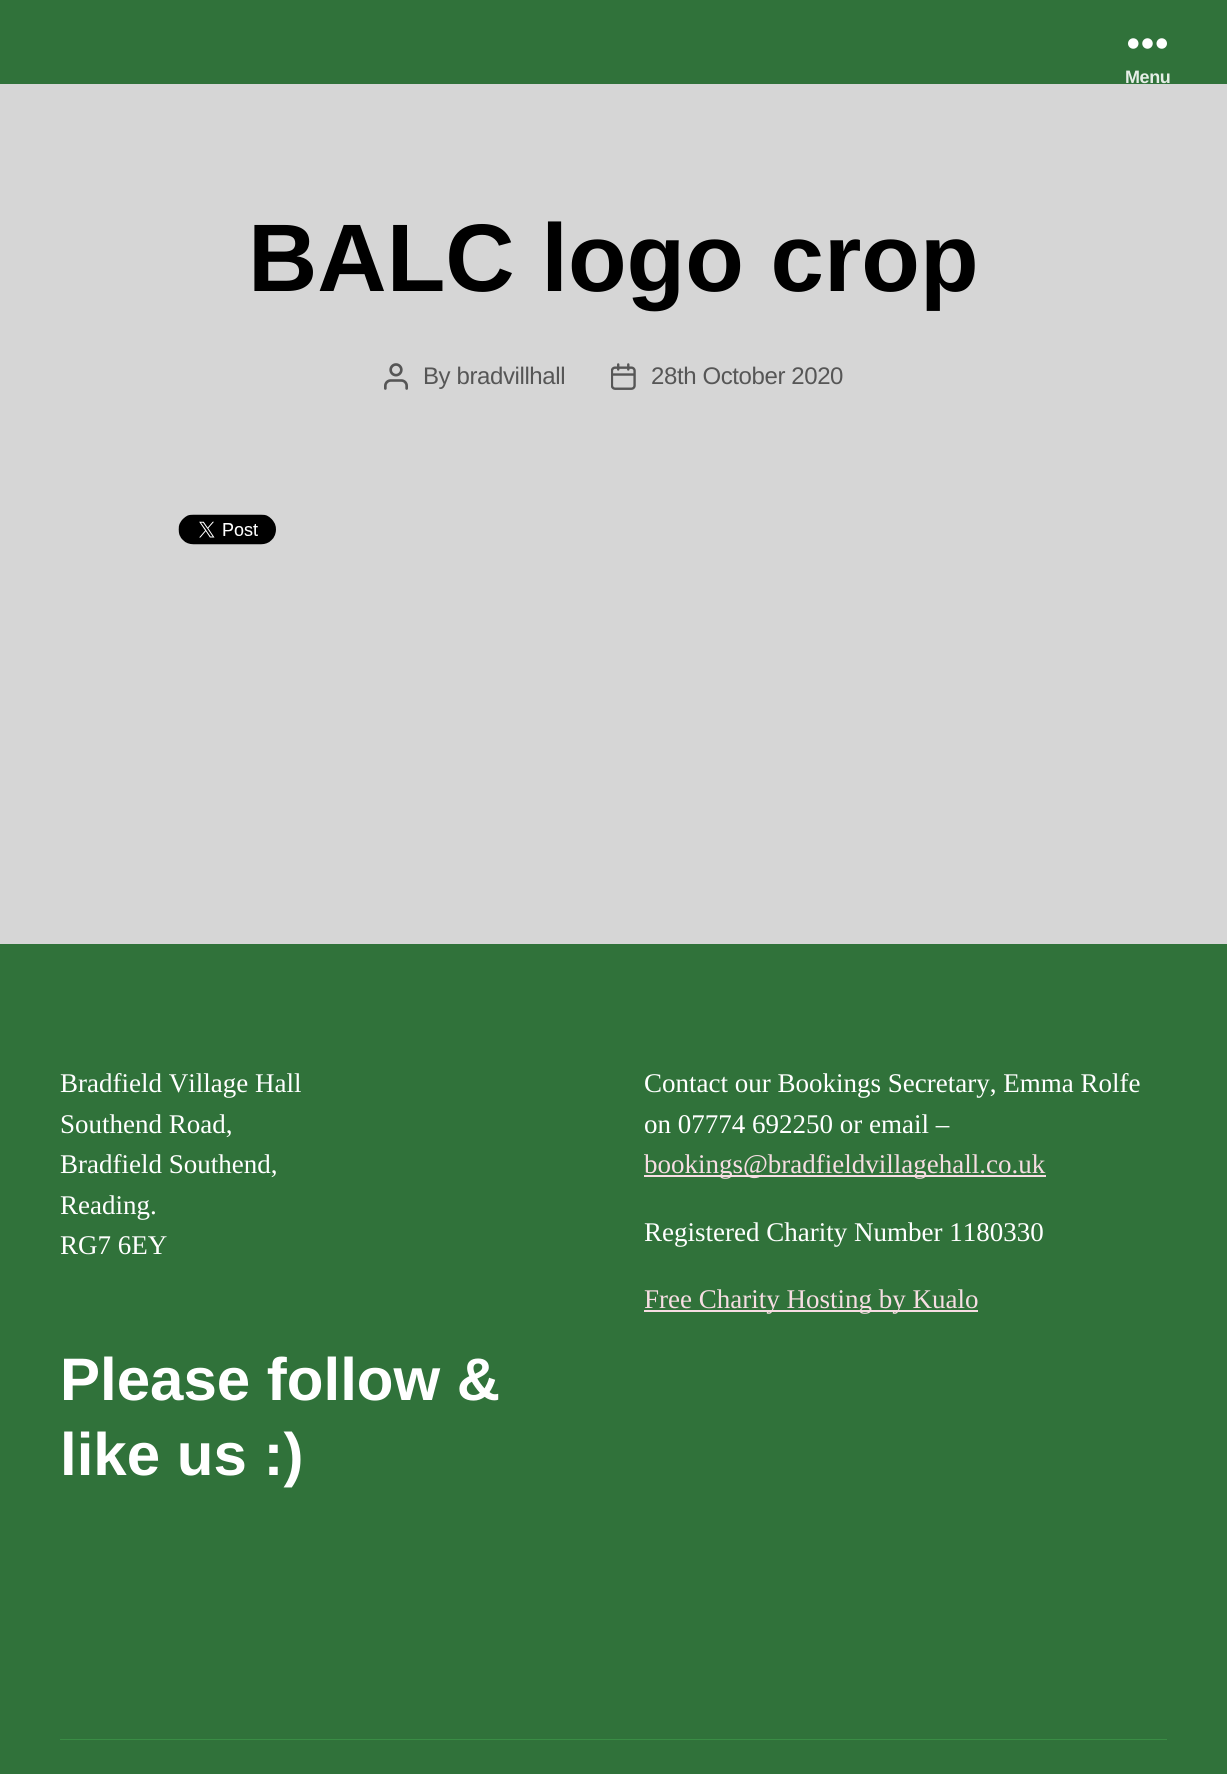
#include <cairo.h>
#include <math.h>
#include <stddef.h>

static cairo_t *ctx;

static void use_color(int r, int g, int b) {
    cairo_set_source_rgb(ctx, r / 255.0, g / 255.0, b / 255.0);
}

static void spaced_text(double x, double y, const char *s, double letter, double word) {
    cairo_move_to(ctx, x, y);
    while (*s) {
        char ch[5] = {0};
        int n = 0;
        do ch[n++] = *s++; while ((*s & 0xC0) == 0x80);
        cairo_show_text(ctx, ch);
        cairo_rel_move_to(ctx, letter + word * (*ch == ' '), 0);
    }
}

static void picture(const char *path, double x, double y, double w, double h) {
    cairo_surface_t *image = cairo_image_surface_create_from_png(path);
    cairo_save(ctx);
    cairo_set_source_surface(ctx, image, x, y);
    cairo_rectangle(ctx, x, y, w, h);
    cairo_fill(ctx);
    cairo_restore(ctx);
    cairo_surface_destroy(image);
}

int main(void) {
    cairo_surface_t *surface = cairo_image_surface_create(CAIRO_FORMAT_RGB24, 1227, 1774);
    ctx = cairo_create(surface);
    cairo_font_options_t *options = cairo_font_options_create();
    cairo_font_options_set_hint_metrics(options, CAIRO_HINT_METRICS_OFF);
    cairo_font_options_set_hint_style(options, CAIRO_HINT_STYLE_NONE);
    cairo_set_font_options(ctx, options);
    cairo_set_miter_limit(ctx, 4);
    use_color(214, 214, 214);
    cairo_paint(ctx);
    use_color(48, 114, 58);
    cairo_rectangle(ctx, 0, 0, 1227, 84);
    cairo_fill(ctx);
    picture("img1.png", 1128, 38, 39, 11);
    cairo_select_font_face(ctx, "Liberation Sans", CAIRO_FONT_SLANT_NORMAL, CAIRO_FONT_WEIGHT_BOLD);
    cairo_set_font_size(ctx, 18);
    use_color(230, 238, 231);
    spaced_text(1125, 83, "Menu", -0.4, 0);
    cairo_set_font_size(ctx, 96);
    use_color(0, 0, 0);
    cairo_move_to(ctx, 248, 291);
    cairo_show_text(ctx, "BALC logo crop");
    picture("img2.png", 384, 363, 24, 27);
    cairo_select_font_face(ctx, "Liberation Sans", CAIRO_FONT_SLANT_NORMAL, CAIRO_FONT_WEIGHT_NORMAL);
    cairo_set_font_size(ctx, 24);
    use_color(86, 86, 86);
    spaced_text(423, 384, "By bradvillhall", -0.4, 0);
    picture("img3.png", 611, 363, 25, 27);
    spaced_text(651, 384, "28th October 2020", -0.4, 0);
    picture("img4.png", 178, 514, 98, 31);
    use_color(48, 114, 58);
    cairo_rectangle(ctx, 0, 944, 1227, 830);
    cairo_fill(ctx);
    use_color(58, 140, 69);
    cairo_rectangle(ctx, 60, 1739, 1107, 1);
    cairo_fill(ctx);
    cairo_select_font_face(ctx, "Liberation Serif", CAIRO_FONT_SLANT_NORMAL, CAIRO_FONT_WEIGHT_NORMAL);
    cairo_set_font_size(ctx, 27);
    use_color(255, 255, 255);
    cairo_move_to(ctx, 60, 1092);
    cairo_show_text(ctx, "Bradfield Village Hall");
    cairo_move_to(ctx, 60, 1133);
    cairo_show_text(ctx, "Southend Road,");
    cairo_move_to(ctx, 60, 1173);
    cairo_show_text(ctx, "Bradfield Southend,");
    cairo_move_to(ctx, 60, 1214);
    cairo_show_text(ctx, "Reading.");
    cairo_move_to(ctx, 60, 1254);
    cairo_show_text(ctx, "RG7 6EY");
    cairo_select_font_face(ctx, "Liberation Sans", CAIRO_FONT_SLANT_NORMAL, CAIRO_FONT_WEIGHT_BOLD);
    cairo_set_font_size(ctx, 60);
    cairo_move_to(ctx, 60, 1400);
    cairo_show_text(ctx, "Please follow &");
    cairo_move_to(ctx, 60, 1475);
    cairo_show_text(ctx, "like us :)");
    cairo_select_font_face(ctx, "Liberation Serif", CAIRO_FONT_SLANT_NORMAL, CAIRO_FONT_WEIGHT_NORMAL);
    cairo_set_font_size(ctx, 27);
    cairo_move_to(ctx, 644, 1092);
    cairo_show_text(ctx, "Contact our Bookings Secretary, Emma Rolfe");
    cairo_move_to(ctx, 644, 1133);
    cairo_show_text(ctx, "on 07774 692250 or email –");
    use_color(247, 221, 227);
    cairo_rectangle(ctx, 644, 1175, 402, 2);
    cairo_fill(ctx);
    cairo_move_to(ctx, 644, 1173);
    cairo_show_text(ctx, "bookings@bradfieldvillagehall.co.uk");
    use_color(255, 255, 255);
    cairo_move_to(ctx, 644, 1241);
    cairo_show_text(ctx, "Registered Charity Number 1180330");
    use_color(247, 221, 227);
    cairo_rectangle(ctx, 644, 1310, 334, 2);
    cairo_fill(ctx);
    cairo_move_to(ctx, 644, 1308);
    cairo_show_text(ctx, "Free Charity Hosting by Kualo");
    cairo_surface_write_to_png(surface, "result.png");
    cairo_font_options_destroy(options);
    cairo_destroy(ctx);
    cairo_surface_destroy(surface);
    return 0;
}
